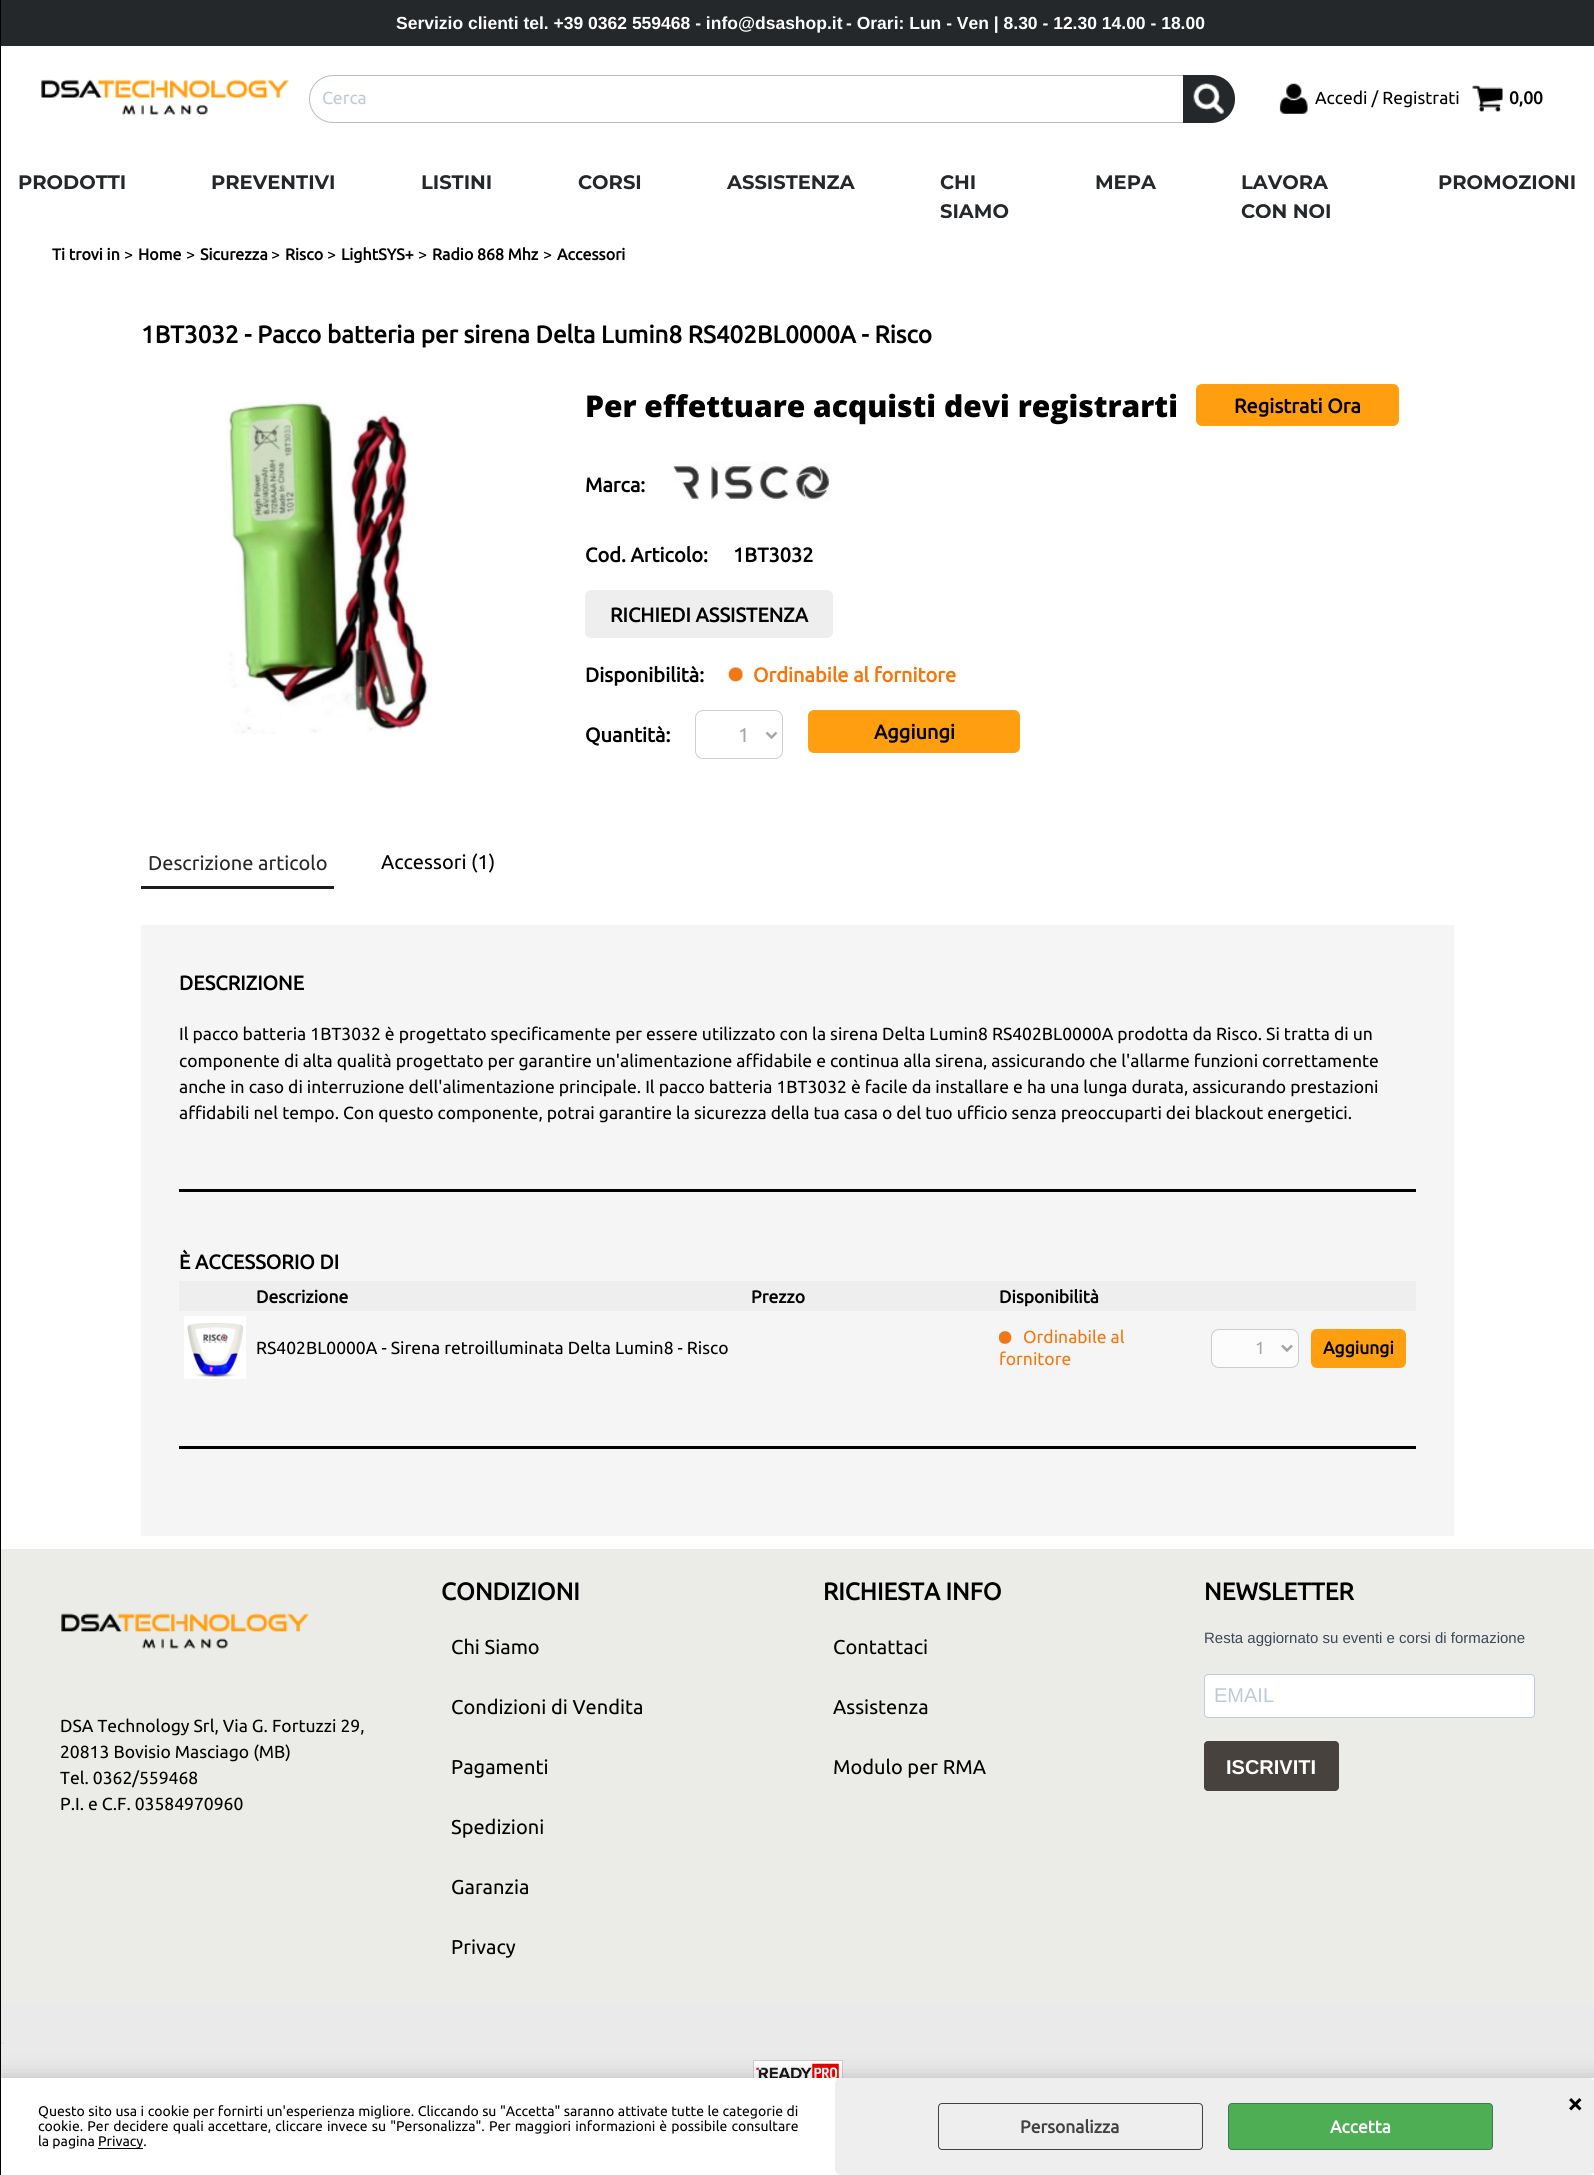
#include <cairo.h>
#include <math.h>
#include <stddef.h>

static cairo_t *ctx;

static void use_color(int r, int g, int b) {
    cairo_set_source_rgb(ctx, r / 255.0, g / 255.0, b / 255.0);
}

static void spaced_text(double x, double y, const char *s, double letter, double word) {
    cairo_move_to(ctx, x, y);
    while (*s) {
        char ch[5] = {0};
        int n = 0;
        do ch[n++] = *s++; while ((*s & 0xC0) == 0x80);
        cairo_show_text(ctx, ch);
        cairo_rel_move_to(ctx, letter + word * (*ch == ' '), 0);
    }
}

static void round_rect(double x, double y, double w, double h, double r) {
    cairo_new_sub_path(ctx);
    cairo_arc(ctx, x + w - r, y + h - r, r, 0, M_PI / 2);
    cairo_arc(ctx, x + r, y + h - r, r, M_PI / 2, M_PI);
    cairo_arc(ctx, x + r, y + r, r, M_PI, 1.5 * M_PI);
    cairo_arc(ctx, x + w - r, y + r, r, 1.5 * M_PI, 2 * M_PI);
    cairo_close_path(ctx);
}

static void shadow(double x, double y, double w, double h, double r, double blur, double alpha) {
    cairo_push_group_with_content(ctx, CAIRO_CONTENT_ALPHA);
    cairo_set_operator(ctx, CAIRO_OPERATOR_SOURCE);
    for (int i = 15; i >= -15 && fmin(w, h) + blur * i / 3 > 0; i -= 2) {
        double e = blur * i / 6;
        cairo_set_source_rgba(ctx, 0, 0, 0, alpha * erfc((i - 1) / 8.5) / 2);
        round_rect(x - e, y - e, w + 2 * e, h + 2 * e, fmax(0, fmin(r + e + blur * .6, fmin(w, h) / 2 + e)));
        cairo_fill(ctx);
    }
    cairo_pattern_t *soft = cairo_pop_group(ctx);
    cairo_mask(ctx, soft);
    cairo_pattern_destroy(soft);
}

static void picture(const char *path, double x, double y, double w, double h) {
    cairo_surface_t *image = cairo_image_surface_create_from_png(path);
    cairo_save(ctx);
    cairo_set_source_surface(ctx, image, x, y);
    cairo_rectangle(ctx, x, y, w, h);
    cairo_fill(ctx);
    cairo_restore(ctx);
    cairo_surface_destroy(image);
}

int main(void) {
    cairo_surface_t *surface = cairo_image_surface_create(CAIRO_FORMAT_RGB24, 1594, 2175);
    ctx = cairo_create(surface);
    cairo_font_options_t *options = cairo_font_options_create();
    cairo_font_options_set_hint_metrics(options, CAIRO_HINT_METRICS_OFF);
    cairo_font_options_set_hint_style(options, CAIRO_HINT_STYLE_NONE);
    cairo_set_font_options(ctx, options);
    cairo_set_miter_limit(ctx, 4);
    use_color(234, 234, 234);
    cairo_paint(ctx);
    use_color(255, 255, 255);
    cairo_rectangle(ctx, 754, 2061, 88, 17);
    cairo_fill(ctx);
    cairo_rectangle(ctx, 753.5, 2060.5, 89, 25);
    use_color(204, 204, 204);
    cairo_set_line_width(ctx, 1);
    cairo_stroke(ctx);
    picture("img12.png", 756, 2063, 83, 15);
    use_color(0, 0, 0);
    shadow(0, 2078, 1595, 97, 0, 11, 0.2);
    use_color(0, 0, 0);
    cairo_rectangle(ctx, 0, 0, 1, 2175);
    cairo_fill(ctx);
    use_color(255, 255, 255);
    cairo_rectangle(ctx, 1, 46, 1593, 172);
    cairo_fill(ctx);
    use_color(37, 40, 42);
    cairo_rectangle(ctx, 1, 0, 1593, 46);
    cairo_fill(ctx);
    cairo_select_font_face(ctx, "Liberation Sans", CAIRO_FONT_SLANT_NORMAL, CAIRO_FONT_WEIGHT_BOLD);
    cairo_set_font_size(ctx, 17.5);
    use_color(255, 255, 255);
    cairo_move_to(ctx, 396, 29);
    cairo_show_text(ctx, "Servizio clienti tel. +39 0362 559468 - info@dsashop.it");
    cairo_move_to(ctx, 846, 29);
    cairo_show_text(ctx, "- Orari: Lun - Ven | 8.30 - 12.30 14.00 - 18.00");
    picture("img1.png", 41, 79, 248, 37);
    round_rect(309.5, 75.5, 925, 47, 23.5);
    use_color(187, 187, 187);
    cairo_stroke(ctx);
    cairo_select_font_face(ctx, "Ubuntu", CAIRO_FONT_SLANT_NORMAL, CAIRO_FONT_WEIGHT_NORMAL);
    use_color(191, 202, 216);
    cairo_move_to(ctx, 322, 104);
    cairo_show_text(ctx, "Cerca");
    use_color(37, 40, 42);
    cairo_new_path(ctx);
    cairo_move_to(ctx, 1183, 75);
    cairo_line_to(ctx, 1211, 75);
    cairo_curve_to(ctx, 1224.5, 75, 1235, 85.5, 1235, 99);
    cairo_curve_to(ctx, 1235, 112.5, 1224.5, 123, 1211, 123);
    cairo_line_to(ctx, 1183, 123);
    cairo_close_path(ctx);
    cairo_fill(ctx);
    picture("img2.png", 1193, 83, 31, 31);
    picture("img3.png", 1279, 83, 29, 31);
    use_color(0, 0, 0);
    cairo_move_to(ctx, 1315, 104);
    cairo_show_text(ctx, "Accedi / Registrati");
    picture("img4.png", 1472, 85, 31, 27);
    cairo_select_font_face(ctx, "Ubuntu", CAIRO_FONT_SLANT_NORMAL, CAIRO_FONT_WEIGHT_BOLD);
    cairo_move_to(ctx, 1509, 104);
    cairo_show_text(ctx, "0,00");
    cairo_select_font_face(ctx, "Montserrat", CAIRO_FONT_SLANT_NORMAL, CAIRO_FONT_WEIGHT_BOLD);
    cairo_set_font_size(ctx, 19.5);
    use_color(37, 40, 42);
    cairo_move_to(ctx, 18, 189);
    cairo_show_text(ctx, "PRODOTTI");
    cairo_move_to(ctx, 211, 189);
    cairo_show_text(ctx, "PREVENTIVI");
    cairo_move_to(ctx, 421, 189);
    cairo_show_text(ctx, "LISTINI");
    cairo_move_to(ctx, 578, 189);
    cairo_show_text(ctx, "CORSI");
    cairo_move_to(ctx, 727, 189);
    cairo_show_text(ctx, "ASSISTENZA");
    cairo_move_to(ctx, 940, 189);
    cairo_show_text(ctx, "CHI");
    cairo_move_to(ctx, 940, 218);
    cairo_show_text(ctx, "SIAMO");
    cairo_move_to(ctx, 1095, 189);
    cairo_show_text(ctx, "MEPA");
    cairo_move_to(ctx, 1241, 189);
    cairo_show_text(ctx, "LAVORA");
    cairo_move_to(ctx, 1241, 218);
    cairo_show_text(ctx, "CON NOI");
    cairo_move_to(ctx, 1438, 189);
    cairo_show_text(ctx, "PROMOZIONI");
    use_color(255, 255, 255);
    cairo_rectangle(ctx, 1, 218, 1593, 1331);
    cairo_fill(ctx);
    cairo_select_font_face(ctx, "Ubuntu", CAIRO_FONT_SLANT_NORMAL, CAIRO_FONT_WEIGHT_BOLD);
    cairo_set_font_size(ctx, 16);
    use_color(0, 0, 0);
    cairo_move_to(ctx, 52, 260);
    cairo_show_text(ctx, "Ti trovi in");
    cairo_select_font_face(ctx, "Ubuntu", CAIRO_FONT_SLANT_NORMAL, CAIRO_FONT_WEIGHT_NORMAL);
    cairo_move_to(ctx, 124, 260);
    cairo_show_text(ctx, ">");
    cairo_select_font_face(ctx, "Ubuntu", CAIRO_FONT_SLANT_NORMAL, CAIRO_FONT_WEIGHT_BOLD);
    cairo_move_to(ctx, 138, 260);
    cairo_show_text(ctx, "Home");
    cairo_select_font_face(ctx, "Ubuntu", CAIRO_FONT_SLANT_NORMAL, CAIRO_FONT_WEIGHT_NORMAL);
    cairo_move_to(ctx, 186, 260);
    cairo_show_text(ctx, ">");
    cairo_select_font_face(ctx, "Ubuntu", CAIRO_FONT_SLANT_NORMAL, CAIRO_FONT_WEIGHT_BOLD);
    cairo_move_to(ctx, 200, 260);
    cairo_show_text(ctx, "Sicurezza");
    cairo_select_font_face(ctx, "Ubuntu", CAIRO_FONT_SLANT_NORMAL, CAIRO_FONT_WEIGHT_NORMAL);
    cairo_move_to(ctx, 271, 260);
    cairo_show_text(ctx, ">");
    cairo_select_font_face(ctx, "Ubuntu", CAIRO_FONT_SLANT_NORMAL, CAIRO_FONT_WEIGHT_BOLD);
    cairo_move_to(ctx, 285, 260);
    cairo_show_text(ctx, "Risco");
    cairo_select_font_face(ctx, "Ubuntu", CAIRO_FONT_SLANT_NORMAL, CAIRO_FONT_WEIGHT_NORMAL);
    cairo_move_to(ctx, 327, 260);
    cairo_show_text(ctx, ">");
    cairo_select_font_face(ctx, "Ubuntu", CAIRO_FONT_SLANT_NORMAL, CAIRO_FONT_WEIGHT_BOLD);
    cairo_move_to(ctx, 341, 260);
    cairo_show_text(ctx, "LightSYS+");
    cairo_select_font_face(ctx, "Ubuntu", CAIRO_FONT_SLANT_NORMAL, CAIRO_FONT_WEIGHT_NORMAL);
    cairo_move_to(ctx, 418, 260);
    cairo_show_text(ctx, ">");
    cairo_select_font_face(ctx, "Ubuntu", CAIRO_FONT_SLANT_NORMAL, CAIRO_FONT_WEIGHT_BOLD);
    cairo_move_to(ctx, 432, 260);
    cairo_show_text(ctx, "Radio 868 Mhz");
    cairo_select_font_face(ctx, "Ubuntu", CAIRO_FONT_SLANT_NORMAL, CAIRO_FONT_WEIGHT_NORMAL);
    cairo_move_to(ctx, 543, 260);
    cairo_show_text(ctx, ">");
    cairo_select_font_face(ctx, "Ubuntu", CAIRO_FONT_SLANT_NORMAL, CAIRO_FONT_WEIGHT_BOLD);
    cairo_move_to(ctx, 557, 260);
    cairo_show_text(ctx, "Accessori");
    cairo_set_font_size(ctx, 24.25);
    cairo_move_to(ctx, 141, 343);
    cairo_show_text(ctx, "1BT3032 - Pacco batteria per sirena Delta Lumin8 RS402BL0000A - Risco");
    picture("img5.png", 225, 402, 203, 332);
    cairo_select_font_face(ctx, "Open Sans ExtraBold", CAIRO_FONT_SLANT_NORMAL, CAIRO_FONT_WEIGHT_NORMAL);
    cairo_set_font_size(ctx, 30);
    cairo_move_to(ctx, 585, 417);
    cairo_show_text(ctx, "Per effettuare acquisti devi registrarti");
    use_color(255, 159, 16);
    round_rect(1196, 384, 203, 42, 6);
    cairo_fill(ctx);
    cairo_select_font_face(ctx, "Ubuntu", CAIRO_FONT_SLANT_NORMAL, CAIRO_FONT_WEIGHT_BOLD);
    cairo_set_font_size(ctx, 20);
    use_color(0, 0, 0);
    cairo_move_to(ctx, 1234, 413);
    cairo_show_text(ctx, "Registrati Ora");
    cairo_move_to(ctx, 585, 492);
    cairo_show_text(ctx, "Marca:");
    picture("img6.png", 671, 461, 159, 40);
    cairo_move_to(ctx, 585, 562);
    cairo_show_text(ctx, "Cod. Articolo:");
    cairo_move_to(ctx, 733, 562);
    cairo_show_text(ctx, "1BT3032");
    use_color(238, 238, 238);
    round_rect(585, 590, 248, 48, 6);
    cairo_fill(ctx);
    use_color(0, 0, 0);
    cairo_move_to(ctx, 610, 622);
    cairo_show_text(ctx, "RICHIEDI ASSISTENZA");
    cairo_move_to(ctx, 585, 682);
    cairo_show_text(ctx, "Disponibilità:");
    picture("img7.png", 728, 667, 15, 15);
    use_color(243, 119, 12);
    cairo_move_to(ctx, 753, 682);
    cairo_show_text(ctx, "Ordinabile al fornitore");
    use_color(0, 0, 0);
    cairo_move_to(ctx, 585, 742);
    cairo_show_text(ctx, "Quantità:");
    round_rect(695.5, 710.5, 87, 48, 7.5);
    use_color(207, 207, 207);
    cairo_stroke(ctx);
    cairo_new_path(ctx);
    cairo_move_to(ctx, 766.5, 732.5);
    cairo_line_to(ctx, 771.5, 737.5);
    cairo_line_to(ctx, 776.5, 732.5);
    use_color(166, 166, 166);
    cairo_set_line_width(ctx, 2.5);
    cairo_stroke(ctx);
    cairo_select_font_face(ctx, "Ubuntu", CAIRO_FONT_SLANT_NORMAL, CAIRO_FONT_WEIGHT_NORMAL);
    cairo_move_to(ctx, 738, 742);
    cairo_show_text(ctx, "1");
    use_color(255, 159, 16);
    round_rect(808, 710, 212, 43, 6);
    cairo_fill(ctx);
    cairo_select_font_face(ctx, "Ubuntu", CAIRO_FONT_SLANT_NORMAL, CAIRO_FONT_WEIGHT_BOLD);
    use_color(0, 0, 0);
    cairo_move_to(ctx, 874, 739);
    cairo_show_text(ctx, "Aggiungi");
    use_color(29, 29, 27);
    cairo_rectangle(ctx, 141, 886, 193, 3);
    cairo_fill(ctx);
    cairo_select_font_face(ctx, "Ubuntu", CAIRO_FONT_SLANT_NORMAL, CAIRO_FONT_WEIGHT_NORMAL);
    use_color(37, 40, 42);
    cairo_move_to(ctx, 148, 870);
    cairo_show_text(ctx, "Descrizione articolo");
    use_color(0, 0, 0);
    cairo_move_to(ctx, 381, 869);
    cairo_show_text(ctx, "Accessori (1)");
    use_color(245, 245, 245);
    cairo_rectangle(ctx, 141, 925, 1313, 611);
    cairo_fill(ctx);
    cairo_select_font_face(ctx, "Ubuntu", CAIRO_FONT_SLANT_NORMAL, CAIRO_FONT_WEIGHT_BOLD);
    use_color(0, 0, 0);
    cairo_move_to(ctx, 179, 990);
    cairo_show_text(ctx, "DESCRIZIONE");
    cairo_rectangle(ctx, 179, 1189, 1237, 3);
    cairo_fill(ctx);
    cairo_select_font_face(ctx, "Ubuntu", CAIRO_FONT_SLANT_NORMAL, CAIRO_FONT_WEIGHT_NORMAL);
    cairo_set_font_size(ctx, 17.5);
    cairo_move_to(ctx, 179, 1040);
    cairo_show_text(ctx, "Il pacco batteria 1BT3032 è progettato specificamente per essere utilizzato con la sirena Delta Lumin8 RS402BL0000A prodotta da Risco. Si tratta di un");
    cairo_move_to(ctx, 179, 1067);
    cairo_show_text(ctx, "componente di alta qualità progettato per garantire un'alimentazione affidabile e continua alla sirena, assicurando che l'allarme funzioni correttamente");
    cairo_move_to(ctx, 179, 1093);
    cairo_show_text(ctx, "anche in caso di interruzione dell'alimentazione principale. Il pacco batteria 1BT3032 è facile da installare e ha una lunga durata, assicurando prestazioni");
    cairo_move_to(ctx, 179, 1119);
    cairo_show_text(ctx, "affidabili nel tempo. Con questo componente, potrai garantire la sicurezza della tua casa o del tuo ufficio senza preoccuparti dei blackout energetici.");
    cairo_rectangle(ctx, 179, 1446, 1237, 3);
    cairo_fill(ctx);
    cairo_select_font_face(ctx, "Ubuntu", CAIRO_FONT_SLANT_NORMAL, CAIRO_FONT_WEIGHT_BOLD);
    cairo_set_font_size(ctx, 20);
    cairo_move_to(ctx, 179, 1269);
    cairo_show_text(ctx, "È ACCESSORIO DI");
    use_color(238, 238, 238);
    cairo_rectangle(ctx, 179, 1281, 1237, 30);
    cairo_fill(ctx);
    cairo_set_font_size(ctx, 17.5);
    use_color(0, 0, 0);
    cairo_move_to(ctx, 256, 1303);
    cairo_show_text(ctx, "Descrizione");
    cairo_move_to(ctx, 751, 1303);
    cairo_show_text(ctx, "Prezzo");
    cairo_move_to(ctx, 999, 1303);
    cairo_show_text(ctx, "Disponibilità");
    picture("img8.png", 184, 1316, 62, 63);
    cairo_select_font_face(ctx, "Ubuntu", CAIRO_FONT_SLANT_NORMAL, CAIRO_FONT_WEIGHT_NORMAL);
    cairo_move_to(ctx, 256, 1354);
    cairo_show_text(ctx, "RS402BL0000A - Sirena retroilluminata Delta Lumin8 - Risco");
    picture("img9.png", 999, 1331, 13, 13);
    use_color(243, 119, 12);
    cairo_move_to(ctx, 1023, 1343);
    cairo_show_text(ctx, "Ordinabile al");
    cairo_move_to(ctx, 999, 1365);
    cairo_show_text(ctx, "fornitore");
    use_color(252, 252, 252);
    round_rect(1211.5, 1329.5, 87, 38, 7.5);
    cairo_fill_preserve(ctx);
    use_color(204, 204, 204);
    cairo_set_line_width(ctx, 1);
    cairo_stroke(ctx);
    cairo_new_path(ctx);
    cairo_move_to(ctx, 1282, 1345.5);
    cairo_line_to(ctx, 1287, 1350.5);
    cairo_line_to(ctx, 1292, 1345.5);
    use_color(163, 163, 163);
    cairo_set_line_width(ctx, 2.5);
    cairo_stroke(ctx);
    use_color(166, 166, 166);
    cairo_move_to(ctx, 1255, 1354);
    cairo_show_text(ctx, "1");
    use_color(255, 159, 16);
    round_rect(1311, 1329, 95, 39, 6);
    cairo_fill(ctx);
    cairo_select_font_face(ctx, "Ubuntu", CAIRO_FONT_SLANT_NORMAL, CAIRO_FONT_WEIGHT_BOLD);
    use_color(0, 0, 0);
    cairo_move_to(ctx, 1323, 1354);
    cairo_show_text(ctx, "Aggiungi");
    use_color(235, 235, 231);
    cairo_rectangle(ctx, 1, 1549, 1593, 454);
    cairo_fill(ctx);
    picture("img10.png", 61, 1613, 248, 36);
    cairo_select_font_face(ctx, "Ubuntu", CAIRO_FONT_SLANT_NORMAL, CAIRO_FONT_WEIGHT_NORMAL);
    use_color(0, 0, 0);
    cairo_move_to(ctx, 60, 1732);
    cairo_show_text(ctx, "DSA Technology Srl, Via G. Fortuzzi 29,");
    cairo_move_to(ctx, 60, 1758);
    cairo_show_text(ctx, "20813 Bovisio Masciago (MB)");
    cairo_move_to(ctx, 60, 1784);
    cairo_show_text(ctx, "Tel. 0362/559468");
    cairo_move_to(ctx, 60, 1810);
    cairo_show_text(ctx, "P.I. e C.F. 03584970960");
    cairo_select_font_face(ctx, "Ubuntu", CAIRO_FONT_SLANT_NORMAL, CAIRO_FONT_WEIGHT_BOLD);
    cairo_set_font_size(ctx, 24.25);
    cairo_move_to(ctx, 441, 1600);
    cairo_show_text(ctx, "CONDIZIONI");
    cairo_select_font_face(ctx, "Ubuntu", CAIRO_FONT_SLANT_NORMAL, CAIRO_FONT_WEIGHT_NORMAL);
    cairo_set_font_size(ctx, 20);
    cairo_move_to(ctx, 451, 1654);
    cairo_show_text(ctx, "Chi Siamo");
    cairo_move_to(ctx, 451, 1714);
    cairo_show_text(ctx, "Condizioni di Vendita");
    cairo_move_to(ctx, 451, 1774);
    cairo_show_text(ctx, "Pagamenti");
    cairo_move_to(ctx, 451, 1834);
    cairo_show_text(ctx, "Spedizioni");
    cairo_move_to(ctx, 451, 1894);
    cairo_show_text(ctx, "Garanzia");
    cairo_move_to(ctx, 451, 1954);
    cairo_show_text(ctx, "Privacy");
    cairo_select_font_face(ctx, "Ubuntu", CAIRO_FONT_SLANT_NORMAL, CAIRO_FONT_WEIGHT_BOLD);
    cairo_set_font_size(ctx, 24.25);
    cairo_move_to(ctx, 823, 1600);
    cairo_show_text(ctx, "RICHIESTA INFO");
    cairo_select_font_face(ctx, "Ubuntu", CAIRO_FONT_SLANT_NORMAL, CAIRO_FONT_WEIGHT_NORMAL);
    cairo_set_font_size(ctx, 20);
    cairo_move_to(ctx, 833, 1654);
    cairo_show_text(ctx, "Contattaci");
    cairo_move_to(ctx, 833, 1714);
    cairo_show_text(ctx, "Assistenza");
    cairo_move_to(ctx, 833, 1774);
    cairo_show_text(ctx, "Modulo per RMA");
    cairo_select_font_face(ctx, "Ubuntu", CAIRO_FONT_SLANT_NORMAL, CAIRO_FONT_WEIGHT_BOLD);
    cairo_set_font_size(ctx, 24.25);
    cairo_move_to(ctx, 1204, 1600);
    cairo_show_text(ctx, "NEWSLETTER");
    cairo_select_font_face(ctx, "Liberation Sans", CAIRO_FONT_SLANT_NORMAL, CAIRO_FONT_WEIGHT_NORMAL);
    cairo_set_font_size(ctx, 15);
    use_color(60, 72, 88);
    cairo_move_to(ctx, 1204, 1643);
    cairo_show_text(ctx, "Resta aggiornato su eventi e corsi di formazione");
    use_color(255, 255, 255);
    round_rect(1204.5, 1674.5, 330, 43, 3.5);
    cairo_fill_preserve(ctx);
    use_color(192, 204, 218);
    cairo_set_line_width(ctx, 1);
    cairo_stroke(ctx);
    cairo_set_font_size(ctx, 20);
    use_color(191, 202, 216);
    cairo_move_to(ctx, 1214, 1702);
    cairo_show_text(ctx, "EMAIL");
    use_color(71, 66, 62);
    round_rect(1204, 1741, 135, 50, 4);
    cairo_fill(ctx);
    cairo_select_font_face(ctx, "Liberation Sans", CAIRO_FONT_SLANT_NORMAL, CAIRO_FONT_WEIGHT_BOLD);
    use_color(255, 255, 255);
    cairo_move_to(ctx, 1226, 1774);
    cairo_show_text(ctx, "ISCRIVITI");
    picture("img11.png", 1, 2042, 1, 2);
    cairo_rectangle(ctx, 1, 2078, 1593, 97);
    cairo_fill(ctx);
    cairo_select_font_face(ctx, "Ubuntu", CAIRO_FONT_SLANT_NORMAL, CAIRO_FONT_WEIGHT_NORMAL);
    cairo_set_font_size(ctx, 14);
    use_color(0, 0, 0);
    spaced_text(38, 2116, "Questo sito usa i cookie per fornirti un'esperienza migliore. Cliccando su \"Accetta\" saranno attivate tutte le categorie di", 0, 0.25);
    spaced_text(38, 2131, "cookie. Per decidere quali accettare, cliccare invece su \"Personalizza\". Per maggiori informazioni è possibile consultare", 0, 0.9);
    cairo_move_to(ctx, 38, 2146);
    cairo_show_text(ctx, "la pagina");
    cairo_rectangle(ctx, 98, 2148, 45, 1);
    cairo_fill(ctx);
    cairo_move_to(ctx, 98, 2146);
    cairo_show_text(ctx, "Privacy.");
    use_color(238, 238, 238);
    round_rect(835, 2078, 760, 97, 6);
    cairo_fill(ctx);
    round_rect(938.5, 2103.5, 264, 46, 3.5);
    use_color(66, 65, 65);
    cairo_stroke(ctx);
    cairo_select_font_face(ctx, "Ubuntu", CAIRO_FONT_SLANT_NORMAL, CAIRO_FONT_WEIGHT_BOLD);
    cairo_set_font_size(ctx, 17.5);
    cairo_move_to(ctx, 1020, 2133);
    cairo_show_text(ctx, "Personalizza");
    use_color(78, 174, 84);
    round_rect(1228.5, 2103.5, 264, 46, 3.5);
    cairo_fill_preserve(ctx);
    use_color(63, 119, 85);
    cairo_stroke(ctx);
    use_color(255, 255, 255);
    cairo_move_to(ctx, 1330, 2133);
    cairo_show_text(ctx, "Accetta");
    cairo_set_font_size(ctx, 28);
    use_color(0, 0, 0);
    cairo_move_to(ctx, 1567, 2113);
    cairo_show_text(ctx, "×");
    cairo_surface_write_to_png(surface, "result.png");
    cairo_font_options_destroy(options);
    cairo_destroy(ctx);
    cairo_surface_destroy(surface);
    return 0;
}
